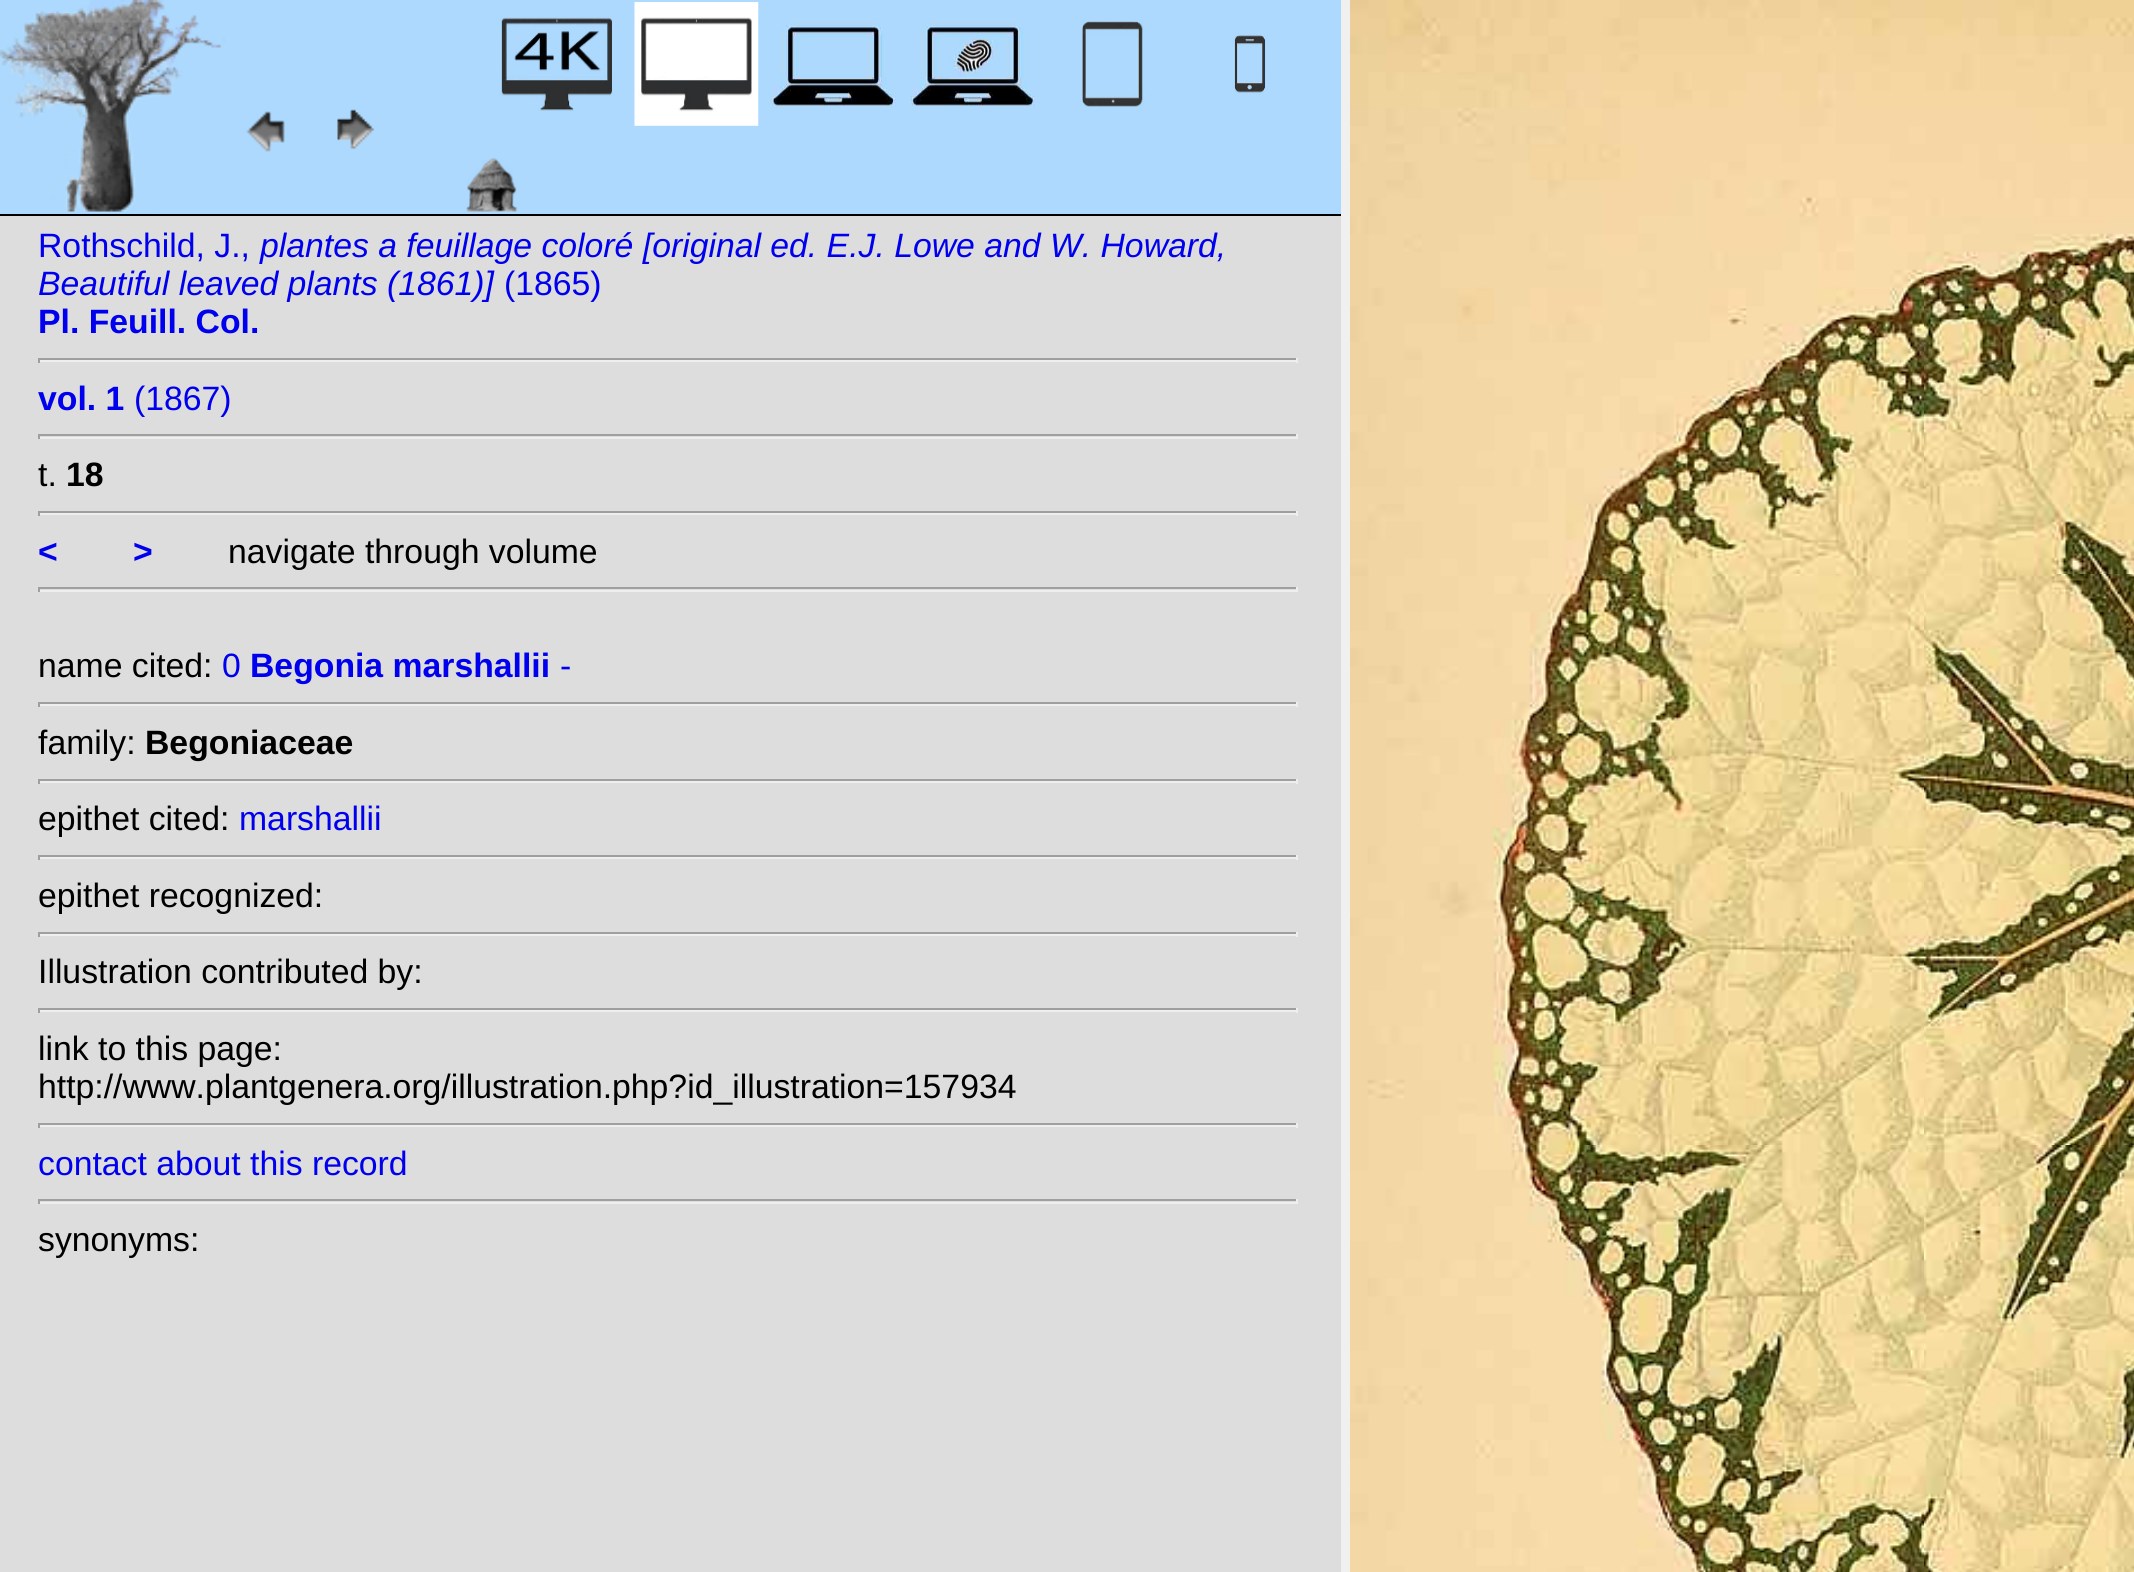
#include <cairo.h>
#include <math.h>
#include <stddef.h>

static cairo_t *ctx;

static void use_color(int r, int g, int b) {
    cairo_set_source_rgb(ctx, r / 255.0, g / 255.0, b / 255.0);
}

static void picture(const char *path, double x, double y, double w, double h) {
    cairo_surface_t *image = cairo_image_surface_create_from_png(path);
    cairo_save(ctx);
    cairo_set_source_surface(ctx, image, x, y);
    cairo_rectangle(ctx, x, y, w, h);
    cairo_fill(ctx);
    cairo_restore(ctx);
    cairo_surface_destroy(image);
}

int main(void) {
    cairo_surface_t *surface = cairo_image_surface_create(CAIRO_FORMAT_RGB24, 2134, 1572);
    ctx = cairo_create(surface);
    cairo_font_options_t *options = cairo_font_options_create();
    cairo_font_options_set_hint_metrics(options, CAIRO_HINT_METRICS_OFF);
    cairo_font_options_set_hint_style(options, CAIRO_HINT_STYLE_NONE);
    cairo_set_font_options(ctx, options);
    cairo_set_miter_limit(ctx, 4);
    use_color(240, 240, 240);
    cairo_paint(ctx);
    use_color(221, 221, 221);
    cairo_rectangle(ctx, 0, 216, 1341, 1356);
    cairo_fill(ctx);
    use_color(173, 217, 254);
    cairo_rectangle(ctx, 0, 0, 1341, 214);
    cairo_fill(ctx);
    use_color(0, 0, 0);
    cairo_rectangle(ctx, 0, 214, 1341, 2);
    cairo_fill(ctx);
    picture("img1.png", 0, 0, 225, 212);
    picture("img2.png", 246, 111, 39, 41);
    picture("img3.png", 337, 109, 38, 41);
    picture("img4.png", 499, 17, 114, 94);
    picture("img5.png", 634, 2, 125, 124);
    picture("img6.png", 771, 21, 125, 86);
    picture("img7.png", 911, 21, 124, 86);
    picture("img8.png", 1082, 21, 63, 86);
    picture("img9.png", 1232, 35, 34, 58);
    picture("img10.png", 466, 158, 52, 54);
    cairo_select_font_face(ctx, "Liberation Sans", CAIRO_FONT_SLANT_NORMAL, CAIRO_FONT_WEIGHT_NORMAL);
    cairo_set_font_size(ctx, 33.75);
    use_color(0, 0, 238);
    cairo_move_to(ctx, 38, 257);
    cairo_show_text(ctx, "Rothschild, J.,");
    cairo_select_font_face(ctx, "Liberation Sans", CAIRO_FONT_SLANT_ITALIC, CAIRO_FONT_WEIGHT_NORMAL);
    cairo_move_to(ctx, 260, 257);
    cairo_show_text(ctx, "plantes a feuillage coloré [original ed. E.J. Lowe and W. Howard,");
    cairo_move_to(ctx, 38, 295);
    cairo_show_text(ctx, "Beautiful leaved plants (1861)]");
    cairo_select_font_face(ctx, "Liberation Sans", CAIRO_FONT_SLANT_NORMAL, CAIRO_FONT_WEIGHT_NORMAL);
    cairo_move_to(ctx, 504, 295);
    cairo_show_text(ctx, "(1865)");
    cairo_select_font_face(ctx, "Liberation Sans", CAIRO_FONT_SLANT_NORMAL, CAIRO_FONT_WEIGHT_BOLD);
    cairo_move_to(ctx, 38, 333);
    cairo_show_text(ctx, "Pl. Feuill. Col.");
    use_color(159, 159, 159);
    cairo_rectangle(ctx, 38, 358, 1260, 2);
    cairo_fill(ctx);
    use_color(238, 238, 238);
    cairo_rectangle(ctx, 1296, 358, 2, 5);
    cairo_fill(ctx);
    cairo_rectangle(ctx, 38, 360, 1260, 2);
    cairo_fill(ctx);
    use_color(159, 159, 159);
    cairo_rectangle(ctx, 38, 358, 2, 5);
    cairo_fill(ctx);
    use_color(0, 0, 238);
    cairo_move_to(ctx, 38, 410);
    cairo_show_text(ctx, "vol. 1");
    cairo_select_font_face(ctx, "Liberation Sans", CAIRO_FONT_SLANT_NORMAL, CAIRO_FONT_WEIGHT_NORMAL);
    cairo_move_to(ctx, 134, 410);
    cairo_show_text(ctx, "(1867)");
    use_color(159, 159, 159);
    cairo_rectangle(ctx, 38, 434, 1260, 2);
    cairo_fill(ctx);
    use_color(238, 238, 238);
    cairo_rectangle(ctx, 1296, 434, 2, 5);
    cairo_fill(ctx);
    cairo_rectangle(ctx, 38, 437, 1260, 2);
    cairo_fill(ctx);
    use_color(159, 159, 159);
    cairo_rectangle(ctx, 38, 434, 2, 5);
    cairo_fill(ctx);
    use_color(0, 0, 0);
    cairo_move_to(ctx, 38, 486);
    cairo_show_text(ctx, "t.");
    cairo_select_font_face(ctx, "Liberation Sans", CAIRO_FONT_SLANT_NORMAL, CAIRO_FONT_WEIGHT_BOLD);
    cairo_move_to(ctx, 66, 486);
    cairo_show_text(ctx, "18");
    use_color(159, 159, 159);
    cairo_rectangle(ctx, 38, 511, 1260, 2);
    cairo_fill(ctx);
    use_color(238, 238, 238);
    cairo_rectangle(ctx, 1296, 511, 2, 5);
    cairo_fill(ctx);
    cairo_rectangle(ctx, 38, 513, 1260, 2);
    cairo_fill(ctx);
    use_color(159, 159, 159);
    cairo_rectangle(ctx, 38, 511, 2, 5);
    cairo_fill(ctx);
    use_color(0, 0, 238);
    cairo_move_to(ctx, 38, 563);
    cairo_show_text(ctx, "<");
    cairo_move_to(ctx, 133, 563);
    cairo_show_text(ctx, ">");
    cairo_select_font_face(ctx, "Liberation Sans", CAIRO_FONT_SLANT_NORMAL, CAIRO_FONT_WEIGHT_NORMAL);
    use_color(0, 0, 0);
    cairo_move_to(ctx, 228, 563);
    cairo_show_text(ctx, "navigate through volume");
    use_color(159, 159, 159);
    cairo_rectangle(ctx, 38, 587, 1260, 2);
    cairo_fill(ctx);
    use_color(238, 238, 238);
    cairo_rectangle(ctx, 1296, 587, 2, 5);
    cairo_fill(ctx);
    cairo_rectangle(ctx, 38, 590, 1260, 2);
    cairo_fill(ctx);
    use_color(159, 159, 159);
    cairo_rectangle(ctx, 38, 587, 2, 5);
    cairo_fill(ctx);
    use_color(0, 0, 0);
    cairo_move_to(ctx, 38, 677);
    cairo_show_text(ctx, "name cited:");
    use_color(0, 0, 238);
    cairo_move_to(ctx, 222, 677);
    cairo_show_text(ctx, "0");
    cairo_select_font_face(ctx, "Liberation Sans", CAIRO_FONT_SLANT_NORMAL, CAIRO_FONT_WEIGHT_BOLD);
    cairo_move_to(ctx, 250, 677);
    cairo_show_text(ctx, "Begonia marshallii");
    cairo_select_font_face(ctx, "Liberation Sans", CAIRO_FONT_SLANT_NORMAL, CAIRO_FONT_WEIGHT_NORMAL);
    cairo_move_to(ctx, 560, 677);
    cairo_show_text(ctx, "-");
    use_color(159, 159, 159);
    cairo_rectangle(ctx, 38, 702, 1260, 2);
    cairo_fill(ctx);
    use_color(238, 238, 238);
    cairo_rectangle(ctx, 1296, 702, 2, 5);
    cairo_fill(ctx);
    cairo_rectangle(ctx, 38, 704, 1260, 2);
    cairo_fill(ctx);
    use_color(159, 159, 159);
    cairo_rectangle(ctx, 38, 702, 2, 5);
    cairo_fill(ctx);
    use_color(0, 0, 0);
    cairo_move_to(ctx, 38, 754);
    cairo_show_text(ctx, "family:");
    cairo_select_font_face(ctx, "Liberation Sans", CAIRO_FONT_SLANT_NORMAL, CAIRO_FONT_WEIGHT_BOLD);
    cairo_move_to(ctx, 145, 754);
    cairo_show_text(ctx, "Begoniaceae");
    use_color(159, 159, 159);
    cairo_rectangle(ctx, 38, 779, 1260, 2);
    cairo_fill(ctx);
    use_color(238, 238, 238);
    cairo_rectangle(ctx, 1296, 779, 2, 5);
    cairo_fill(ctx);
    cairo_rectangle(ctx, 38, 781, 1260, 2);
    cairo_fill(ctx);
    use_color(159, 159, 159);
    cairo_rectangle(ctx, 38, 779, 2, 5);
    cairo_fill(ctx);
    cairo_select_font_face(ctx, "Liberation Sans", CAIRO_FONT_SLANT_NORMAL, CAIRO_FONT_WEIGHT_NORMAL);
    use_color(0, 0, 0);
    cairo_move_to(ctx, 38, 830);
    cairo_show_text(ctx, "epithet cited:");
    use_color(0, 0, 238);
    cairo_move_to(ctx, 239, 830);
    cairo_show_text(ctx, "marshallii");
    use_color(159, 159, 159);
    cairo_rectangle(ctx, 38, 855, 1260, 2);
    cairo_fill(ctx);
    use_color(238, 238, 238);
    cairo_rectangle(ctx, 1296, 855, 2, 5);
    cairo_fill(ctx);
    cairo_rectangle(ctx, 38, 857, 1260, 2);
    cairo_fill(ctx);
    use_color(159, 159, 159);
    cairo_rectangle(ctx, 38, 855, 2, 5);
    cairo_fill(ctx);
    use_color(0, 0, 0);
    cairo_move_to(ctx, 38, 907);
    cairo_show_text(ctx, "epithet recognized:");
    use_color(159, 159, 159);
    cairo_rectangle(ctx, 38, 932, 1260, 2);
    cairo_fill(ctx);
    use_color(238, 238, 238);
    cairo_rectangle(ctx, 1296, 932, 2, 5);
    cairo_fill(ctx);
    cairo_rectangle(ctx, 38, 934, 1260, 2);
    cairo_fill(ctx);
    use_color(159, 159, 159);
    cairo_rectangle(ctx, 38, 932, 2, 5);
    cairo_fill(ctx);
    use_color(0, 0, 0);
    cairo_move_to(ctx, 38, 983);
    cairo_show_text(ctx, "Illustration contributed by:");
    use_color(159, 159, 159);
    cairo_rectangle(ctx, 38, 1008, 1260, 2);
    cairo_fill(ctx);
    use_color(238, 238, 238);
    cairo_rectangle(ctx, 1296, 1008, 2, 5);
    cairo_fill(ctx);
    cairo_rectangle(ctx, 38, 1010, 1260, 2);
    cairo_fill(ctx);
    use_color(159, 159, 159);
    cairo_rectangle(ctx, 38, 1008, 2, 5);
    cairo_fill(ctx);
    use_color(0, 0, 0);
    cairo_move_to(ctx, 38, 1060);
    cairo_show_text(ctx, "link to this page:");
    cairo_move_to(ctx, 38, 1098);
    cairo_show_text(ctx, "http://www.plantgenera.org/illustration.php?id_illustration=157934");
    use_color(159, 159, 159);
    cairo_rectangle(ctx, 38, 1123, 1260, 2);
    cairo_fill(ctx);
    use_color(238, 238, 238);
    cairo_rectangle(ctx, 1296, 1123, 2, 5);
    cairo_fill(ctx);
    cairo_rectangle(ctx, 38, 1125, 1260, 2);
    cairo_fill(ctx);
    use_color(159, 159, 159);
    cairo_rectangle(ctx, 38, 1123, 2, 5);
    cairo_fill(ctx);
    use_color(0, 0, 238);
    cairo_move_to(ctx, 38, 1175);
    cairo_show_text(ctx, "contact about this record");
    use_color(159, 159, 159);
    cairo_rectangle(ctx, 38, 1199, 1260, 2);
    cairo_fill(ctx);
    use_color(238, 238, 238);
    cairo_rectangle(ctx, 1296, 1199, 2, 5);
    cairo_fill(ctx);
    cairo_rectangle(ctx, 38, 1202, 1260, 2);
    cairo_fill(ctx);
    use_color(159, 159, 159);
    cairo_rectangle(ctx, 38, 1199, 2, 5);
    cairo_fill(ctx);
    use_color(0, 0, 0);
    cairo_move_to(ctx, 38, 1251);
    cairo_show_text(ctx, "synonyms:");
    picture("img11.png", 1350, 0, 784, 1572);
    cairo_surface_write_to_png(surface, "result.png");
    cairo_font_options_destroy(options);
    cairo_destroy(ctx);
    cairo_surface_destroy(surface);
    return 0;
}
